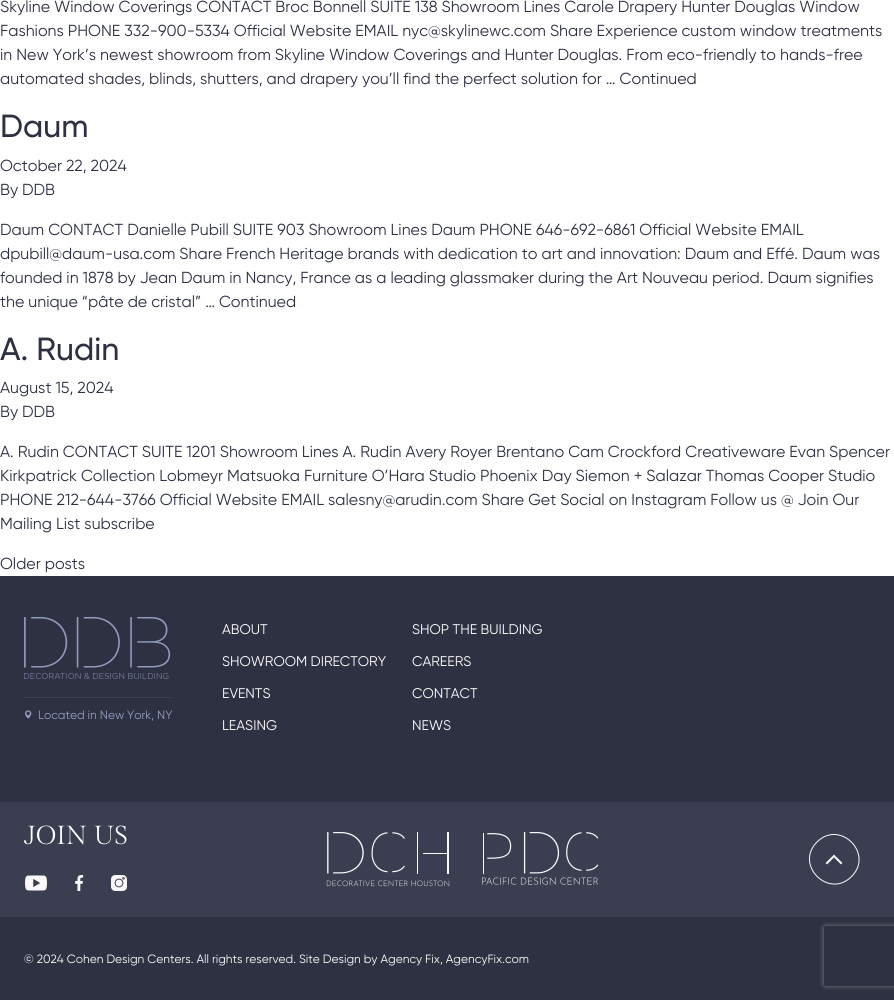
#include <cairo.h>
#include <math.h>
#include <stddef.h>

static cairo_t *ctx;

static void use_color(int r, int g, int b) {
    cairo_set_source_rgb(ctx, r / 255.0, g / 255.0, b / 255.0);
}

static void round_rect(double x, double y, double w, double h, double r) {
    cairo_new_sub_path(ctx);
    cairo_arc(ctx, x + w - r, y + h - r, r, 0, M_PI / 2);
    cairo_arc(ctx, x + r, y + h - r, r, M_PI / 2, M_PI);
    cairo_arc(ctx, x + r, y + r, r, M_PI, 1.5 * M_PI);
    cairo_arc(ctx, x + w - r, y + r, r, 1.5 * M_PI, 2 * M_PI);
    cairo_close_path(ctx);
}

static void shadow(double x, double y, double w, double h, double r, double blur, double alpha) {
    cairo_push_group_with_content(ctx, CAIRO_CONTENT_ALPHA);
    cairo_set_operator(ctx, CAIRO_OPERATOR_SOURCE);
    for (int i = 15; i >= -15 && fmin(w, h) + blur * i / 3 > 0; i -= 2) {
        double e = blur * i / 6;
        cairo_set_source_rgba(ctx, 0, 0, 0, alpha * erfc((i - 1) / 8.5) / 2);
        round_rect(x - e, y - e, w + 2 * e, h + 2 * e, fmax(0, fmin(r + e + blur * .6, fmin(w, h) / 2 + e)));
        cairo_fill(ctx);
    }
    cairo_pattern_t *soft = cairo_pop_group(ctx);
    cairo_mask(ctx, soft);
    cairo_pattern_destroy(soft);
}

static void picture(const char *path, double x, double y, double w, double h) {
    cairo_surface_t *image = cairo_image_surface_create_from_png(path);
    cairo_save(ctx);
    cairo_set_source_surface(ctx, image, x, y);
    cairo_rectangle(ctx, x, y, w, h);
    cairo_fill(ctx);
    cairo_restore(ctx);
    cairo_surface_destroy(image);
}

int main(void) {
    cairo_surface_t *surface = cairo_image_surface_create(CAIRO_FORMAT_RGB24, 894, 1000);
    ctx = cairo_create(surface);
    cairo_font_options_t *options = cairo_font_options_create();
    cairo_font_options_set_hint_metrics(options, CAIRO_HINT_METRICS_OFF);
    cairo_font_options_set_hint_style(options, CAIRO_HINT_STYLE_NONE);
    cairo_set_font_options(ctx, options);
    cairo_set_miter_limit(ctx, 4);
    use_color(255, 255, 255);
    cairo_paint(ctx);
    cairo_select_font_face(ctx, "Gilroy", CAIRO_FONT_SLANT_NORMAL, CAIRO_FONT_WEIGHT_NORMAL);
    cairo_set_font_size(ctx, 16);
    use_color(45, 49, 66);
    cairo_move_to(ctx, 0, 12);
    cairo_show_text(ctx, "Skyline Window Coverings CONTACT Broc Bonnell SUITE 138 Showroom Lines Carole Drapery Hunter Douglas Window");
    cairo_move_to(ctx, 0, 36);
    cairo_show_text(ctx, "Fashions PHONE 332-900-5334 Official Website EMAIL nyc@skylinewc.com Share Experience custom window treatments");
    cairo_move_to(ctx, 0, 60);
    cairo_show_text(ctx, "in New York’s newest showroom from Skyline Window Coverings and Hunter Douglas. From eco-friendly to hands-free");
    cairo_move_to(ctx, 0, 84);
    cairo_show_text(ctx, "automated shades, blinds, shutters, and drapery you’ll find the perfect solution for … Continued");
    cairo_select_font_face(ctx, "Gilroy Medium", CAIRO_FONT_SLANT_NORMAL, CAIRO_FONT_WEIGHT_NORMAL);
    cairo_set_font_size(ctx, 32);
    cairo_move_to(ctx, 0, 137);
    cairo_show_text(ctx, "Daum");
    cairo_select_font_face(ctx, "Gilroy", CAIRO_FONT_SLANT_NORMAL, CAIRO_FONT_WEIGHT_NORMAL);
    cairo_set_font_size(ctx, 16);
    cairo_move_to(ctx, 0, 171);
    cairo_show_text(ctx, "October 22, 2024");
    cairo_move_to(ctx, 0, 195);
    cairo_show_text(ctx, "By DDB");
    cairo_move_to(ctx, 0, 235);
    cairo_show_text(ctx, "Daum CONTACT Danielle Pubill SUITE 903 Showroom Lines Daum PHONE 646-692-6861 Official Website EMAIL");
    cairo_move_to(ctx, 0, 259);
    cairo_show_text(ctx, "dpubill@daum-usa.com Share French Heritage brands with dedication to art and innovation: Daum and Effé. Daum was");
    cairo_move_to(ctx, 0, 283);
    cairo_show_text(ctx, "founded in 1878 by Jean Daum in Nancy, France as a leading glassmaker during the Art Nouveau period. Daum signifies");
    cairo_move_to(ctx, 0, 307);
    cairo_show_text(ctx, "the unique “pâte de cristal” … Continued");
    cairo_select_font_face(ctx, "Gilroy Medium", CAIRO_FONT_SLANT_NORMAL, CAIRO_FONT_WEIGHT_NORMAL);
    cairo_set_font_size(ctx, 32);
    cairo_move_to(ctx, 0, 360);
    cairo_show_text(ctx, "A. Rudin");
    cairo_select_font_face(ctx, "Gilroy", CAIRO_FONT_SLANT_NORMAL, CAIRO_FONT_WEIGHT_NORMAL);
    cairo_set_font_size(ctx, 16);
    cairo_move_to(ctx, 0, 393);
    cairo_show_text(ctx, "August 15, 2024");
    cairo_move_to(ctx, 0, 417);
    cairo_show_text(ctx, "By DDB");
    cairo_move_to(ctx, 0, 457);
    cairo_show_text(ctx, "A. Rudin CONTACT SUITE 1201 Showroom Lines A. Rudin Avery Royer Brentano Cam Crockford Creativeware Evan Spencer");
    cairo_move_to(ctx, 0, 481);
    cairo_show_text(ctx, "Kirkpatrick Collection Lobmeyr Matsuoka Furniture O’Hara Studio Phoenix Day Siemon + Salazar Thomas Cooper Studio");
    cairo_move_to(ctx, 0, 505);
    cairo_show_text(ctx, "PHONE 212-644-3766 Official Website EMAIL salesny@arudin.com Share Get Social on Instagram Follow us @ Join Our");
    cairo_move_to(ctx, 0, 529);
    cairo_show_text(ctx, "Mailing List subscribe");
    cairo_move_to(ctx, 0, 569);
    cairo_show_text(ctx, "Older posts");
    cairo_rectangle(ctx, 0, 576, 894, 424);
    cairo_fill(ctx);
    picture("img1.png", 24, 617, 147, 62);
    use_color(58, 62, 80);
    cairo_rectangle(ctx, 24, 697, 148, 1);
    cairo_fill(ctx);
    picture("img2.png", 25, 710, 7, 9);
    cairo_set_font_size(ctx, 12);
    use_color(151, 159, 193);
    cairo_move_to(ctx, 38, 719);
    cairo_show_text(ctx, "Located in New York, NY");
    cairo_set_font_size(ctx, 14);
    use_color(255, 255, 255);
    cairo_move_to(ctx, 222, 634);
    cairo_show_text(ctx, "ABOUT");
    cairo_move_to(ctx, 412, 634);
    cairo_show_text(ctx, "SHOP THE BUILDING");
    cairo_move_to(ctx, 222, 666);
    cairo_show_text(ctx, "SHOWROOM DIRECTORY");
    cairo_move_to(ctx, 412, 666);
    cairo_show_text(ctx, "CAREERS");
    cairo_move_to(ctx, 222, 698);
    cairo_show_text(ctx, "EVENTS");
    cairo_move_to(ctx, 412, 698);
    cairo_show_text(ctx, "CONTACT");
    cairo_move_to(ctx, 222, 730);
    cairo_show_text(ctx, "LEASING");
    cairo_move_to(ctx, 412, 730);
    cairo_show_text(ctx, "NEWS");
    use_color(58, 62, 80);
    cairo_rectangle(ctx, 0, 802, 894, 115);
    cairo_fill(ctx);
    cairo_select_font_face(ctx, "Gilda Display", CAIRO_FONT_SLANT_NORMAL, CAIRO_FONT_WEIGHT_NORMAL);
    cairo_set_font_size(ctx, 26);
    use_color(255, 255, 255);
    cairo_move_to(ctx, 24, 844);
    cairo_show_text(ctx, "JOIN US");
    picture("img3.png", 25, 875, 22, 16);
    picture("img4.png", 75, 875, 9, 16);
    picture("img5.png", 111, 875, 16, 16);
    picture("img6.png", 326, 832, 124, 55);
    picture("img7.png", 482, 832, 117, 53);
    cairo_new_path(ctx);
    cairo_move_to(ctx, 817, 842);
    cairo_curve_to(ctx, 840, 819, 874.5, 854, 851.5, 876.5);
    cairo_curve_to(ctx, 829, 899.5, 794, 865, 817, 842);
    cairo_close_path(ctx);
    use_color(249, 249, 250);
    cairo_set_line_width(ctx, 1);
    cairo_stroke(ctx);
    cairo_new_path(ctx);
    cairo_move_to(ctx, 827, 863);
    cairo_line_to(ctx, 834, 856);
    cairo_line_to(ctx, 841, 863);
    cairo_set_line_width(ctx, 2);
    cairo_set_line_cap(ctx, CAIRO_LINE_CAP_SQUARE);
    cairo_stroke(ctx);
    cairo_select_font_face(ctx, "Gilroy", CAIRO_FONT_SLANT_NORMAL, CAIRO_FONT_WEIGHT_NORMAL);
    cairo_set_font_size(ctx, 12);
    use_color(255, 255, 255);
    cairo_move_to(ctx, 24, 963);
    cairo_show_text(ctx, "© 2024 Cohen Design Centers. All rights reserved. Site Design by Agency Fix, AgencyFix.com");
    cairo_save(ctx);
    cairo_set_fill_rule(ctx, CAIRO_FILL_RULE_EVEN_ODD);
    cairo_new_path(ctx);
    cairo_move_to(ctx, 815, 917);
    cairo_line_to(ctx, 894, 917);
    cairo_line_to(ctx, 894, 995);
    cairo_line_to(ctx, 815, 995);
    cairo_close_path(ctx);
    cairo_move_to(ctx, 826, 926);
    cairo_line_to(ctx, 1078, 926);
    cairo_curve_to(ctx, 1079, 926, 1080, 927, 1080, 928);
    cairo_line_to(ctx, 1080, 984);
    cairo_curve_to(ctx, 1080, 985, 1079, 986, 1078, 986);
    cairo_line_to(ctx, 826, 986);
    cairo_curve_to(ctx, 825, 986, 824, 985, 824, 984);
    cairo_line_to(ctx, 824, 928);
    cairo_curve_to(ctx, 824, 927, 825, 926, 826, 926);
    cairo_close_path(ctx);
    cairo_clip(ctx);
    use_color(128, 128, 128);
    shadow(824, 926, 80, 60, 2, 2.5, 1);
    cairo_restore(ctx);
    cairo_surface_write_to_png(surface, "result.png");
    cairo_font_options_destroy(options);
    cairo_destroy(ctx);
    cairo_surface_destroy(surface);
    return 0;
}
